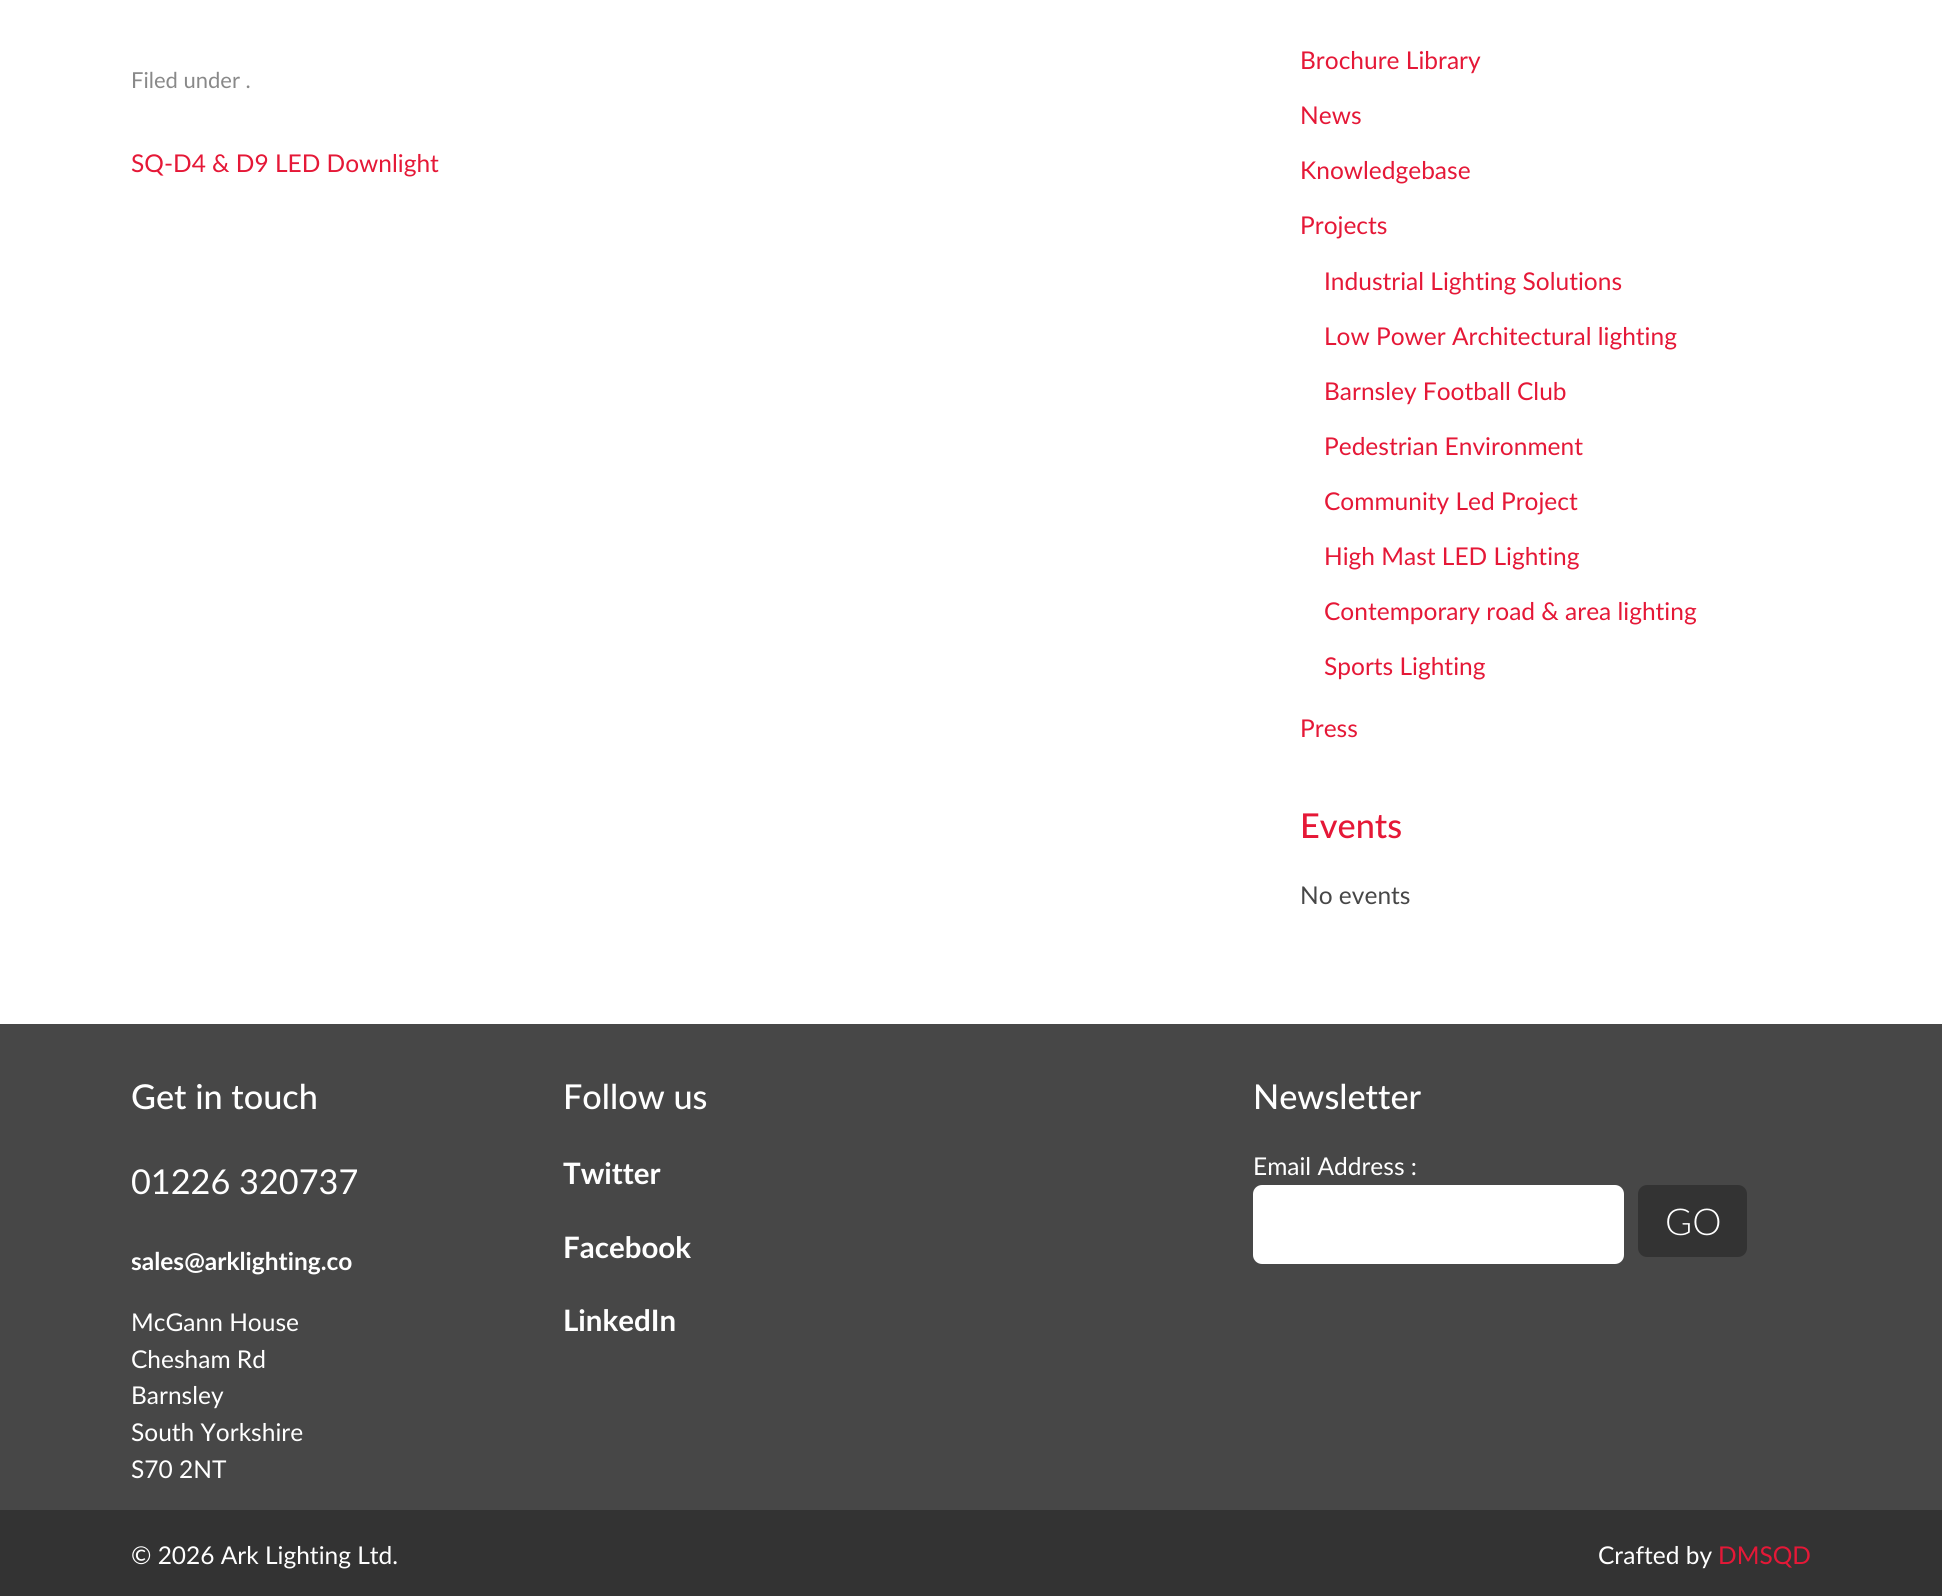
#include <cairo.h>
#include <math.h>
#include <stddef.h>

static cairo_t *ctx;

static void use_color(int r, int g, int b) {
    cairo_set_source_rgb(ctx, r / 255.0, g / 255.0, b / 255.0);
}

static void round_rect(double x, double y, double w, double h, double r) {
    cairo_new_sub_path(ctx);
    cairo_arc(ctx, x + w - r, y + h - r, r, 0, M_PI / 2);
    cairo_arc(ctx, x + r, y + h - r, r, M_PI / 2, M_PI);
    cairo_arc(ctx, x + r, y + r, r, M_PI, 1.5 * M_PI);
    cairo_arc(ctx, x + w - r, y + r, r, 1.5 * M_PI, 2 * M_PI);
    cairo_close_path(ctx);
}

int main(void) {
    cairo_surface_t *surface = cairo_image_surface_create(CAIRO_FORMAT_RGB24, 1942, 1596);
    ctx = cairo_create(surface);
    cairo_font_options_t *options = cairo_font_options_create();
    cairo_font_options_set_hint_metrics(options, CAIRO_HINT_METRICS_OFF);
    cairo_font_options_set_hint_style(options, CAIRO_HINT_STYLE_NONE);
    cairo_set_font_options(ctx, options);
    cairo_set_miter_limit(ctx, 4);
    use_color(255, 255, 255);
    cairo_paint(ctx);
    cairo_select_font_face(ctx, "Lato", CAIRO_FONT_SLANT_NORMAL, CAIRO_FONT_WEIGHT_NORMAL);
    cairo_set_font_size(ctx, 22);
    use_color(137, 137, 137);
    cairo_move_to(ctx, 131, 88);
    cairo_show_text(ctx, "Filed under .");
    cairo_set_font_size(ctx, 24.5);
    use_color(229, 24, 55);
    cairo_move_to(ctx, 131, 172);
    cairo_show_text(ctx, "SQ-D4 & D9 LED Downlight");
    cairo_move_to(ctx, 1300, 69);
    cairo_show_text(ctx, "Brochure Library");
    cairo_move_to(ctx, 1300, 124);
    cairo_show_text(ctx, "News");
    cairo_move_to(ctx, 1300, 179);
    cairo_show_text(ctx, "Knowledgebase");
    cairo_move_to(ctx, 1300, 234);
    cairo_show_text(ctx, "Projects");
    cairo_move_to(ctx, 1324, 290);
    cairo_show_text(ctx, "Industrial Lighting Solutions");
    cairo_move_to(ctx, 1324, 345);
    cairo_show_text(ctx, "Low Power Architectural lighting");
    cairo_move_to(ctx, 1324, 400);
    cairo_show_text(ctx, "Barnsley Football Club");
    cairo_move_to(ctx, 1324, 455);
    cairo_show_text(ctx, "Pedestrian Environment");
    cairo_move_to(ctx, 1324, 510);
    cairo_show_text(ctx, "Community Led Project");
    cairo_move_to(ctx, 1324, 565);
    cairo_show_text(ctx, "High Mast LED Lighting");
    cairo_move_to(ctx, 1324, 620);
    cairo_show_text(ctx, "Contemporary road & area lighting");
    cairo_move_to(ctx, 1324, 675);
    cairo_show_text(ctx, "Sports Lighting");
    cairo_move_to(ctx, 1300, 737);
    cairo_show_text(ctx, "Press");
    cairo_select_font_face(ctx, "Lato Medium", CAIRO_FONT_SLANT_NORMAL, CAIRO_FONT_WEIGHT_NORMAL);
    cairo_set_font_size(ctx, 34.25);
    cairo_move_to(ctx, 1300, 838);
    cairo_show_text(ctx, "Events");
    cairo_select_font_face(ctx, "Lato", CAIRO_FONT_SLANT_NORMAL, CAIRO_FONT_WEIGHT_NORMAL);
    cairo_set_font_size(ctx, 24.5);
    use_color(71, 71, 71);
    cairo_move_to(ctx, 1300, 904);
    cairo_show_text(ctx, "No events");
    cairo_rectangle(ctx, 0, 1024, 1942, 486);
    cairo_fill(ctx);
    cairo_select_font_face(ctx, "Lato Medium", CAIRO_FONT_SLANT_NORMAL, CAIRO_FONT_WEIGHT_NORMAL);
    cairo_set_font_size(ctx, 34.25);
    use_color(255, 255, 255);
    cairo_move_to(ctx, 131, 1109);
    cairo_show_text(ctx, "Get in touch");
    cairo_select_font_face(ctx, "Lato", CAIRO_FONT_SLANT_NORMAL, CAIRO_FONT_WEIGHT_NORMAL);
    cairo_move_to(ctx, 131, 1194);
    cairo_show_text(ctx, "01226 320737");
    cairo_select_font_face(ctx, "Lato", CAIRO_FONT_SLANT_NORMAL, CAIRO_FONT_WEIGHT_BOLD);
    cairo_set_font_size(ctx, 24.5);
    cairo_move_to(ctx, 131, 1270);
    cairo_show_text(ctx, "sales@arklighting.co");
    cairo_select_font_face(ctx, "Lato", CAIRO_FONT_SLANT_NORMAL, CAIRO_FONT_WEIGHT_NORMAL);
    cairo_move_to(ctx, 131, 1331);
    cairo_show_text(ctx, "McGann House");
    cairo_move_to(ctx, 131, 1368);
    cairo_show_text(ctx, "Chesham Rd");
    cairo_move_to(ctx, 131, 1404);
    cairo_show_text(ctx, "Barnsley");
    cairo_move_to(ctx, 131, 1441);
    cairo_show_text(ctx, "South Yorkshire");
    cairo_move_to(ctx, 131, 1478);
    cairo_show_text(ctx, "S70 2NT");
    cairo_select_font_face(ctx, "Lato Medium", CAIRO_FONT_SLANT_NORMAL, CAIRO_FONT_WEIGHT_NORMAL);
    cairo_set_font_size(ctx, 34.25);
    cairo_move_to(ctx, 563, 1109);
    cairo_show_text(ctx, "Follow us");
    cairo_select_font_face(ctx, "Lato", CAIRO_FONT_SLANT_NORMAL, CAIRO_FONT_WEIGHT_BOLD);
    cairo_set_font_size(ctx, 29.5);
    cairo_move_to(ctx, 563, 1184);
    cairo_show_text(ctx, "Twitter");
    cairo_move_to(ctx, 563, 1258);
    cairo_show_text(ctx, "Facebook");
    cairo_move_to(ctx, 563, 1331);
    cairo_show_text(ctx, "LinkedIn");
    cairo_select_font_face(ctx, "Lato Medium", CAIRO_FONT_SLANT_NORMAL, CAIRO_FONT_WEIGHT_NORMAL);
    cairo_set_font_size(ctx, 34.25);
    cairo_move_to(ctx, 1253, 1109);
    cairo_show_text(ctx, "Newsletter");
    cairo_select_font_face(ctx, "Lato", CAIRO_FONT_SLANT_NORMAL, CAIRO_FONT_WEIGHT_NORMAL);
    cairo_set_font_size(ctx, 24.5);
    cairo_move_to(ctx, 1253, 1175);
    cairo_show_text(ctx, "Email Address :");
    round_rect(1253, 1185, 371, 79, 9);
    cairo_fill(ctx);
    use_color(51, 51, 51);
    round_rect(1638, 1185, 109, 72, 9);
    cairo_fill(ctx);
    cairo_select_font_face(ctx, "Lato Light", CAIRO_FONT_SLANT_NORMAL, CAIRO_FONT_WEIGHT_NORMAL);
    cairo_set_font_size(ctx, 37);
    use_color(255, 255, 255);
    cairo_move_to(ctx, 1665, 1235);
    cairo_show_text(ctx, "GO");
    use_color(51, 51, 51);
    cairo_rectangle(ctx, 0, 1510, 1942, 86);
    cairo_fill(ctx);
    cairo_select_font_face(ctx, "Lato", CAIRO_FONT_SLANT_NORMAL, CAIRO_FONT_WEIGHT_NORMAL);
    cairo_set_font_size(ctx, 24.5);
    use_color(255, 255, 255);
    cairo_move_to(ctx, 131, 1564);
    cairo_show_text(ctx, "© 2026 Ark Lighting Ltd.");
    cairo_move_to(ctx, 1598, 1564);
    cairo_show_text(ctx, "Crafted by");
    use_color(229, 24, 55);
    cairo_move_to(ctx, 1718, 1564);
    cairo_show_text(ctx, "DMSQD");
    cairo_surface_write_to_png(surface, "result.png");
    cairo_font_options_destroy(options);
    cairo_destroy(ctx);
    cairo_surface_destroy(surface);
    return 0;
}
